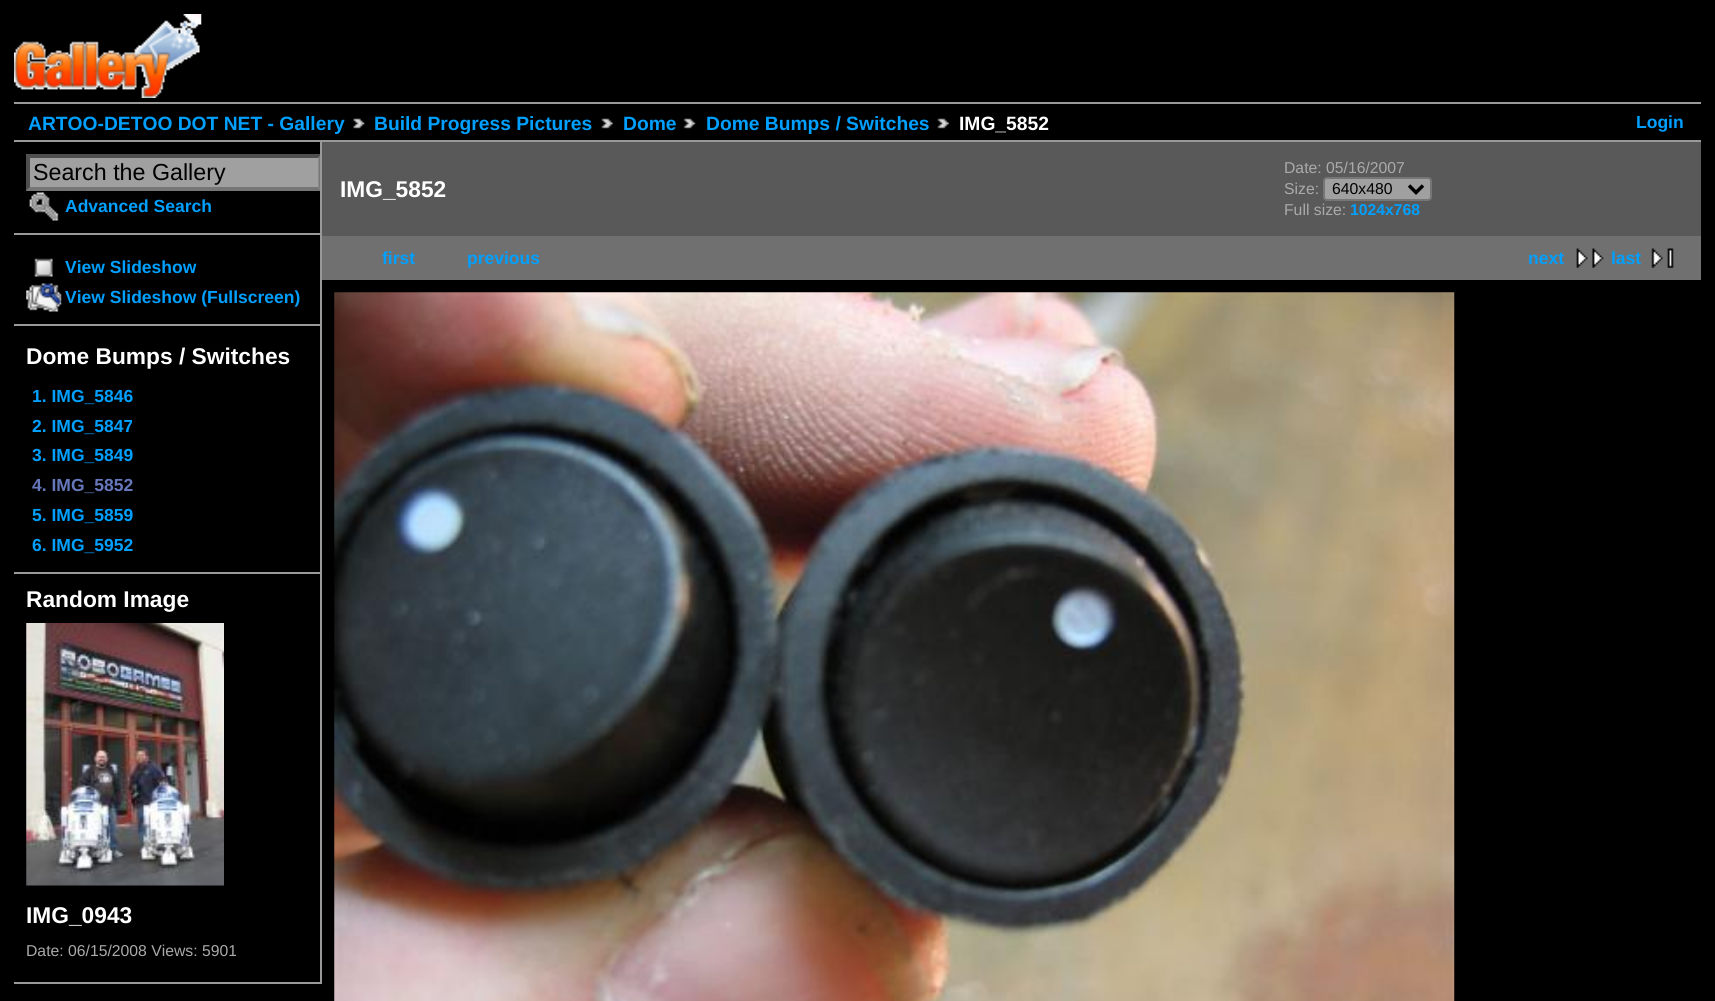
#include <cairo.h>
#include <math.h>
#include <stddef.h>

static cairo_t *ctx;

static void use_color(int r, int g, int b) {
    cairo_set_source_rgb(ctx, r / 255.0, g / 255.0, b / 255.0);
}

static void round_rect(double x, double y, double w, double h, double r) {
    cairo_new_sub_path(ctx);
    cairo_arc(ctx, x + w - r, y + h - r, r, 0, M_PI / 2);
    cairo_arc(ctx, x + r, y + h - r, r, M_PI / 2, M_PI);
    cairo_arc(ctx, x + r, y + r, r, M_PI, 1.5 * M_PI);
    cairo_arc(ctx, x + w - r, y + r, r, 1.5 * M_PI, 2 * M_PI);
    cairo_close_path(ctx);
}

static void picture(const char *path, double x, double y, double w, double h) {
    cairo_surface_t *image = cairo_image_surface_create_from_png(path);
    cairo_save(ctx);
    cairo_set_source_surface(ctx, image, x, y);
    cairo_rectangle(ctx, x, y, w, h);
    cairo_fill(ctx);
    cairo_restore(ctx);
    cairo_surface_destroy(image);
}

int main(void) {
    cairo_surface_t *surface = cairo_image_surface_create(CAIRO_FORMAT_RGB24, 1715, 1001);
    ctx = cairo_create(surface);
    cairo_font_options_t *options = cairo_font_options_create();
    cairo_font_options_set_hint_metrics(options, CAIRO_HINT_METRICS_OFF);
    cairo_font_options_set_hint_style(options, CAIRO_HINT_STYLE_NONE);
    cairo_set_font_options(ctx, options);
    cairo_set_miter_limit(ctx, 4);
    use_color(0, 0, 0);
    cairo_paint(ctx);
    picture("img1.png", 14, 14, 188, 84);
    use_color(153, 153, 153);
    cairo_rectangle(ctx, 14, 102, 1687, 2);
    cairo_fill(ctx);
    cairo_rectangle(ctx, 14, 140, 1687, 2);
    cairo_fill(ctx);
    cairo_select_font_face(ctx, "Liberation Sans", CAIRO_FONT_SLANT_NORMAL, CAIRO_FONT_WEIGHT_BOLD);
    cairo_set_font_size(ctx, 19.25);
    use_color(0, 160, 255);
    cairo_move_to(ctx, 28, 130);
    cairo_show_text(ctx, "ARTOO-DETOO DOT NET - Gallery");
    picture("img2.png", 353, 118, 12, 11);
    cairo_move_to(ctx, 374, 130);
    cairo_show_text(ctx, "Build Progress Pictures");
    picture("img3.png", 601, 118, 12, 11);
    cairo_move_to(ctx, 623, 130);
    cairo_show_text(ctx, "Dome");
    picture("img4.png", 683, 118, 13, 11);
    cairo_move_to(ctx, 706, 130);
    cairo_show_text(ctx, "Dome Bumps / Switches");
    picture("img5.png", 937, 118, 12, 11);
    use_color(255, 255, 255);
    cairo_move_to(ctx, 959, 130);
    cairo_show_text(ctx, "IMG_5852");
    cairo_set_font_size(ctx, 17.5);
    use_color(0, 160, 255);
    cairo_move_to(ctx, 1636, 128);
    cairo_show_text(ctx, "Login");
    use_color(153, 153, 153);
    cairo_rectangle(ctx, 320, 142, 2, 842);
    cairo_fill(ctx);
    cairo_rectangle(ctx, 14, 233, 306, 2);
    cairo_fill(ctx);
    use_color(160, 160, 160);
    cairo_rectangle(ctx, 26, 154, 294, 37);
    cairo_fill(ctx);
    cairo_save(ctx);
    cairo_rectangle(ctx, 14, 142, 306, 842);
    cairo_clip(ctx);
    use_color(79, 79, 79);
    cairo_new_path(ctx);
    cairo_move_to(ctx, 26, 154);
    cairo_line_to(ctx, 322, 154);
    cairo_line_to(ctx, 318, 158);
    cairo_line_to(ctx, 30, 158);
    cairo_close_path(ctx);
    cairo_fill(ctx);
    use_color(118, 118, 118);
    cairo_new_path(ctx);
    cairo_move_to(ctx, 322, 154);
    cairo_line_to(ctx, 322, 191);
    cairo_line_to(ctx, 318.5, 187);
    cairo_line_to(ctx, 318.5, 157.5);
    cairo_close_path(ctx);
    cairo_fill(ctx);
    cairo_new_path(ctx);
    cairo_move_to(ctx, 322, 191);
    cairo_line_to(ctx, 26, 191);
    cairo_line_to(ctx, 30, 187);
    cairo_line_to(ctx, 318, 187);
    cairo_close_path(ctx);
    cairo_fill(ctx);
    cairo_restore(ctx);
    use_color(79, 79, 79);
    cairo_new_path(ctx);
    cairo_move_to(ctx, 26, 191);
    cairo_line_to(ctx, 26, 154);
    cairo_line_to(ctx, 30, 157.5);
    cairo_line_to(ctx, 30, 187);
    cairo_close_path(ctx);
    cairo_fill(ctx);
    cairo_select_font_face(ctx, "Liberation Sans", CAIRO_FONT_SLANT_NORMAL, CAIRO_FONT_WEIGHT_NORMAL);
    cairo_set_font_size(ctx, 23.25);
    use_color(0, 0, 0);
    cairo_move_to(ctx, 33, 180);
    cairo_show_text(ctx, "Search the Gallery");
    picture("img6.png", 29, 192, 30, 29);
    cairo_select_font_face(ctx, "Liberation Sans", CAIRO_FONT_SLANT_NORMAL, CAIRO_FONT_WEIGHT_BOLD);
    cairo_set_font_size(ctx, 17.5);
    use_color(0, 160, 255);
    cairo_move_to(ctx, 65, 212);
    cairo_show_text(ctx, "Advanced Search");
    use_color(153, 153, 153);
    cairo_rectangle(ctx, 14, 324, 306, 2);
    cairo_fill(ctx);
    picture("img7.png", 34, 258, 19, 19);
    use_color(0, 160, 255);
    cairo_move_to(ctx, 65, 273);
    cairo_show_text(ctx, "View Slideshow");
    picture("img8.png", 26, 283, 36, 29);
    cairo_move_to(ctx, 65, 303);
    cairo_show_text(ctx, "View Slideshow (Fullscreen)");
    use_color(153, 153, 153);
    cairo_rectangle(ctx, 14, 572, 306, 2);
    cairo_fill(ctx);
    cairo_set_font_size(ctx, 22.75);
    use_color(255, 255, 255);
    cairo_move_to(ctx, 26, 364);
    cairo_show_text(ctx, "Dome Bumps / Switches");
    cairo_set_font_size(ctx, 17.5);
    use_color(0, 160, 255);
    cairo_move_to(ctx, 32, 402);
    cairo_show_text(ctx, "1. IMG_5846");
    cairo_move_to(ctx, 32, 432);
    cairo_show_text(ctx, "2. IMG_5847");
    cairo_move_to(ctx, 32, 461);
    cairo_show_text(ctx, "3. IMG_5849");
    use_color(102, 119, 187);
    cairo_move_to(ctx, 32, 491);
    cairo_show_text(ctx, "4. IMG_5852");
    use_color(0, 160, 255);
    cairo_move_to(ctx, 32, 521);
    cairo_show_text(ctx, "5. IMG_5859");
    cairo_move_to(ctx, 32, 551);
    cairo_show_text(ctx, "6. IMG_5952");
    use_color(153, 153, 153);
    cairo_rectangle(ctx, 14, 982, 306, 2);
    cairo_fill(ctx);
    cairo_set_font_size(ctx, 22.75);
    use_color(255, 255, 255);
    cairo_move_to(ctx, 26, 607);
    cairo_show_text(ctx, "Random Image");
    picture("img9.png", 26, 623, 198, 263);
    cairo_move_to(ctx, 26, 923);
    cairo_show_text(ctx, "IMG_0943");
    cairo_select_font_face(ctx, "Liberation Sans", CAIRO_FONT_SLANT_NORMAL, CAIRO_FONT_WEIGHT_NORMAL);
    cairo_set_font_size(ctx, 15.75);
    use_color(170, 170, 170);
    cairo_move_to(ctx, 26, 956);
    cairo_show_text(ctx, "Date: 06/15/2008 Views: 5901");
    use_color(89, 89, 89);
    cairo_rectangle(ctx, 322, 142, 1379, 94);
    cairo_fill(ctx);
    cairo_select_font_face(ctx, "Liberation Sans", CAIRO_FONT_SLANT_NORMAL, CAIRO_FONT_WEIGHT_BOLD);
    cairo_set_font_size(ctx, 22.75);
    use_color(255, 255, 255);
    cairo_move_to(ctx, 340, 197);
    cairo_show_text(ctx, "IMG_5852");
    cairo_select_font_face(ctx, "Liberation Sans", CAIRO_FONT_SLANT_NORMAL, CAIRO_FONT_WEIGHT_NORMAL);
    cairo_set_font_size(ctx, 15.75);
    use_color(170, 170, 170);
    cairo_move_to(ctx, 1284, 173);
    cairo_show_text(ctx, "Date: 05/16/2007");
    cairo_move_to(ctx, 1284, 194);
    cairo_show_text(ctx, "Size:");
    use_color(160, 160, 160);
    round_rect(1324, 178, 107, 22, 3);
    cairo_fill_preserve(ctx);
    use_color(118, 118, 118);
    cairo_stroke(ctx);
    cairo_new_path(ctx);
    cairo_move_to(ctx, 1409, 185.5);
    cairo_line_to(ctx, 1416, 192.5);
    cairo_line_to(ctx, 1423, 185.5);
    use_color(0, 0, 0);
    cairo_set_line_width(ctx, 3.5);
    cairo_stroke(ctx);
    cairo_move_to(ctx, 1332, 194);
    cairo_show_text(ctx, "640x480");
    use_color(170, 170, 170);
    cairo_move_to(ctx, 1284, 215);
    cairo_show_text(ctx, "Full size:");
    cairo_select_font_face(ctx, "Liberation Sans", CAIRO_FONT_SLANT_NORMAL, CAIRO_FONT_WEIGHT_BOLD);
    use_color(0, 160, 255);
    cairo_move_to(ctx, 1350, 215);
    cairo_show_text(ctx, "1024x768");
    use_color(112, 112, 112);
    cairo_rectangle(ctx, 322, 236, 1379, 44);
    cairo_fill(ctx);
    cairo_set_font_size(ctx, 17.5);
    use_color(0, 160, 255);
    cairo_move_to(ctx, 382, 264);
    cairo_show_text(ctx, "first");
    cairo_move_to(ctx, 467, 264);
    cairo_show_text(ctx, "previous");
    cairo_move_to(ctx, 1528, 264);
    cairo_show_text(ctx, "next");
    picture("img10.png", 1576, 248, 28, 20);
    cairo_move_to(ctx, 1611, 264);
    cairo_show_text(ctx, "last");
    picture("img11.png", 1651, 248, 23, 20);
    picture("img12.png", 334, 292, 1121, 709);
    cairo_surface_write_to_png(surface, "result.png");
    cairo_font_options_destroy(options);
    cairo_destroy(ctx);
    cairo_surface_destroy(surface);
    return 0;
}
